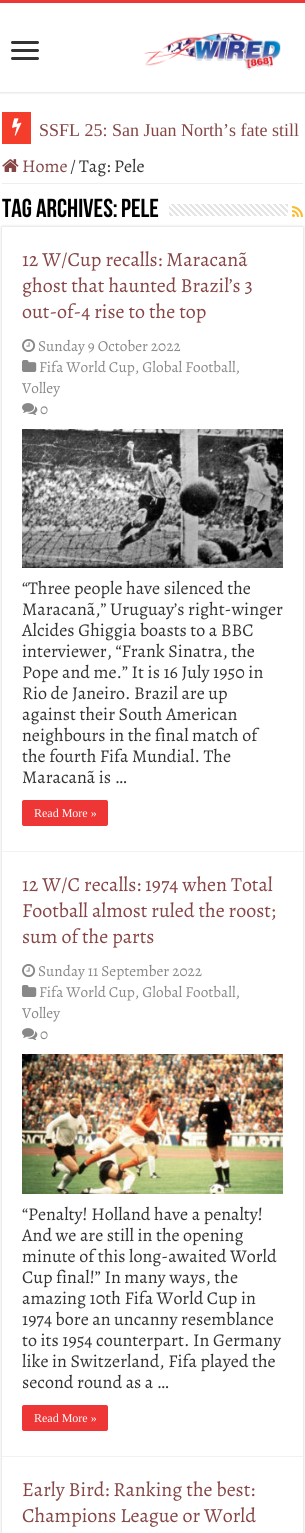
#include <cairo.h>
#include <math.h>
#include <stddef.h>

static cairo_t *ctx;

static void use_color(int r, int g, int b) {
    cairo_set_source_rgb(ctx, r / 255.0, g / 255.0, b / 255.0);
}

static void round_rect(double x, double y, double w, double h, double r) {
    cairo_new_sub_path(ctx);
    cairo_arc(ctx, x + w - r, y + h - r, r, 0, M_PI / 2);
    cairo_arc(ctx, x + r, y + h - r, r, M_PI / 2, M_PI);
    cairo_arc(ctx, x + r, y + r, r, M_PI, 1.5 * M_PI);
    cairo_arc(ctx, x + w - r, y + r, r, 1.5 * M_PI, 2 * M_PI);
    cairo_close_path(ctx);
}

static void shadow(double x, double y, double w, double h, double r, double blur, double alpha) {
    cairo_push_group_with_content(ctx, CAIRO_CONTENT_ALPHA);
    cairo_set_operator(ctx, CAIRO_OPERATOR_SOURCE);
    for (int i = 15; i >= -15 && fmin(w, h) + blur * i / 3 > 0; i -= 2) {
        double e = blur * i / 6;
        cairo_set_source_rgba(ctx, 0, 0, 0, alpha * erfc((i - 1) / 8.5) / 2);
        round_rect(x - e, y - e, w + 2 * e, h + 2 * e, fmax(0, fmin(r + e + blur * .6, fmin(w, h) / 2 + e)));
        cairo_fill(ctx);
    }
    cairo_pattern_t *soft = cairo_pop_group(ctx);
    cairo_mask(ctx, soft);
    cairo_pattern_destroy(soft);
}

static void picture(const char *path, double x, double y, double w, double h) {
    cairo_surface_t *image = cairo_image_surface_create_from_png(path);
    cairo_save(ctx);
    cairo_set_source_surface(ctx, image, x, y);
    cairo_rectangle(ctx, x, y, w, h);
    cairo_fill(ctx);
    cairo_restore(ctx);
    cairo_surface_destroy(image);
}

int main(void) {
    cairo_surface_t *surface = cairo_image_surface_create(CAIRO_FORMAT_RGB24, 305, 1533);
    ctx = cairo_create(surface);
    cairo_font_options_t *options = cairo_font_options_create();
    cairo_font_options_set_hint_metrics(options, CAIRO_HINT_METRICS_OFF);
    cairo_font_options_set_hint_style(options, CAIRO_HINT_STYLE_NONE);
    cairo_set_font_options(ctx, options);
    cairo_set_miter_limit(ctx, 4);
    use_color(255, 255, 255);
    cairo_paint(ctx);
    cairo_save(ctx);
    cairo_rectangle(ctx, 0, 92, 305, 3);
    cairo_clip(ctx);
    use_color(202, 202, 202);
    shadow(0, 0, 305, 92, 0, 1.5, 1);
    cairo_restore(ctx);
    use_color(239, 54, 54);
    cairo_rectangle(ctx, 0, 0, 305, 3);
    cairo_fill(ctx);
    use_color(51, 51, 51);
    round_rect(11, 41, 28, 3, 1.5);
    cairo_fill(ctx);
    round_rect(11, 49, 28, 3, 1.5);
    cairo_fill(ctx);
    round_rect(11, 57, 28, 3, 1.5);
    cairo_fill(ctx);
    picture("img1.png", 144, 32, 137, 38);
    use_color(244, 61, 42);
    cairo_rectangle(ctx, 2, 112, 29, 32);
    cairo_fill(ctx);
    picture("img2.png", 12, 118, 10, 18);
    cairo_select_font_face(ctx, "Liberation Serif", CAIRO_FONT_SLANT_NORMAL, CAIRO_FONT_WEIGHT_NORMAL);
    cairo_set_font_size(ctx, 18);
    use_color(133, 69, 69);
    cairo_move_to(ctx, 39, 136);
    cairo_show_text(ctx, "SSFL 25: San Juan North’s fate still");
    use_color(238, 238, 238);
    cairo_rectangle(ctx, 2, 183, 301, 1);
    cairo_fill(ctx);
    picture("img3.png", 2, 159, 17, 13);
    cairo_select_font_face(ctx, "Alegreya", CAIRO_FONT_SLANT_NORMAL, CAIRO_FONT_WEIGHT_NORMAL);
    use_color(133, 69, 69);
    cairo_move_to(ctx, 22, 172);
    cairo_show_text(ctx, "Home");
    use_color(51, 51, 51);
    cairo_move_to(ctx, 70, 172);
    cairo_show_text(ctx, "/");
    cairo_move_to(ctx, 79, 172);
    cairo_show_text(ctx, "Tag: Pele");
    cairo_save(ctx);
    cairo_rectangle(ctx, 2, 194, 301, 33);
    cairo_clip(ctx);
    cairo_select_font_face(ctx, "Bebas Neue", CAIRO_FONT_SLANT_NORMAL, CAIRO_FONT_WEIGHT_BOLD);
    cairo_set_font_size(ctx, 26);
    use_color(0, 0, 0);
    cairo_move_to(ctx, 2, 217);
    cairo_show_text(ctx, "Tag Archives:");
    cairo_restore(ctx);
    cairo_select_font_face(ctx, "Bebas Neue", CAIRO_FONT_SLANT_NORMAL, CAIRO_FONT_WEIGHT_BOLD);
    cairo_set_font_size(ctx, 26);
    use_color(0, 0, 0);
    cairo_move_to(ctx, 121, 217);
    cairo_show_text(ctx, "Pele");
    picture("img4.png", 169, 204, 119, 12);
    picture("img5.png", 292, 206, 11, 11);
    cairo_save(ctx);
    cairo_set_fill_rule(ctx, CAIRO_FILL_RULE_EVEN_ODD);
    cairo_new_path(ctx);
    cairo_move_to(ctx, 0, 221);
    cairo_line_to(ctx, 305, 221);
    cairo_line_to(ctx, 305, 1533);
    cairo_line_to(ctx, 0, 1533);
    cairo_close_path(ctx);
    cairo_move_to(ctx, 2, 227);
    cairo_line_to(ctx, 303, 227);
    cairo_line_to(ctx, 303, 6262);
    cairo_line_to(ctx, 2, 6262);
    cairo_close_path(ctx);
    cairo_clip(ctx);
    use_color(202, 202, 202);
    shadow(2, 227, 301, 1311, 0, 1.5, 1);
    cairo_restore(ctx);
    use_color(242, 242, 242);
    cairo_rectangle(ctx, 2, 851, 301, 1);
    cairo_fill(ctx);
    cairo_select_font_face(ctx, "Alegreya", CAIRO_FONT_SLANT_NORMAL, CAIRO_FONT_WEIGHT_NORMAL);
    cairo_set_font_size(ctx, 20);
    use_color(133, 69, 69);
    cairo_move_to(ctx, 22, 266);
    cairo_show_text(ctx, "12 W/Cup recalls: Maracanã");
    cairo_move_to(ctx, 22, 292);
    cairo_show_text(ctx, "ghost that haunted Brazil’s 3");
    cairo_move_to(ctx, 22, 318);
    cairo_show_text(ctx, "out-of-4 rise to the top");
    picture("img6.png", 22, 339, 14, 14);
    cairo_set_font_size(ctx, 15.25);
    use_color(136, 136, 136);
    cairo_move_to(ctx, 38, 351);
    cairo_show_text(ctx, "Sunday 9 October 2022");
    picture("img7.png", 22, 360, 15, 12);
    cairo_move_to(ctx, 39, 372);
    cairo_show_text(ctx, "Fifa World Cup, Global Football,");
    cairo_move_to(ctx, 22, 393);
    cairo_show_text(ctx, "Volley");
    picture("img8.png", 22, 403, 16, 12);
    cairo_move_to(ctx, 40, 414);
    cairo_show_text(ctx, "0");
    picture("img9.png", 22, 429, 261, 139);
    cairo_set_font_size(ctx, 18);
    use_color(51, 51, 51);
    cairo_move_to(ctx, 22, 594);
    cairo_show_text(ctx, "“Three people have silenced the");
    cairo_move_to(ctx, 22, 615);
    cairo_show_text(ctx, "Maracanã,” Uruguay’s right-winger");
    cairo_move_to(ctx, 22, 636);
    cairo_show_text(ctx, "Alcides Ghiggia boasts to a BBC");
    cairo_move_to(ctx, 22, 657);
    cairo_show_text(ctx, "interviewer, “Frank Sinatra, the");
    cairo_move_to(ctx, 22, 678);
    cairo_show_text(ctx, "Pope and me.” It is 16 July 1950 in");
    cairo_move_to(ctx, 22, 699);
    cairo_show_text(ctx, "Rio de Janeiro. Brazil are up");
    cairo_move_to(ctx, 22, 720);
    cairo_show_text(ctx, "against their South American");
    cairo_move_to(ctx, 22, 741);
    cairo_show_text(ctx, "neighbours in the final match of");
    cairo_move_to(ctx, 22, 762);
    cairo_show_text(ctx, "the fourth Fifa Mundial. The");
    cairo_move_to(ctx, 22, 783);
    cairo_show_text(ctx, "Maracanã is …");
    use_color(239, 54, 54);
    round_rect(22, 800, 86, 26, 2);
    cairo_fill(ctx);
    cairo_select_font_face(ctx, "Liberation Serif", CAIRO_FONT_SLANT_NORMAL, CAIRO_FONT_WEIGHT_NORMAL);
    cairo_set_font_size(ctx, 12);
    use_color(255, 255, 255);
    cairo_move_to(ctx, 34, 817);
    cairo_show_text(ctx, "Read More »");
    use_color(242, 242, 242);
    cairo_rectangle(ctx, 2, 1456, 301, 1);
    cairo_fill(ctx);
    cairo_select_font_face(ctx, "Alegreya", CAIRO_FONT_SLANT_NORMAL, CAIRO_FONT_WEIGHT_NORMAL);
    cairo_set_font_size(ctx, 20);
    use_color(133, 69, 69);
    cairo_move_to(ctx, 22, 891);
    cairo_show_text(ctx, "12 W/C recalls: 1974 when Total");
    cairo_move_to(ctx, 22, 917);
    cairo_show_text(ctx, "Football almost ruled the roost;");
    cairo_move_to(ctx, 22, 943);
    cairo_show_text(ctx, "sum of the parts");
    picture("img6.png", 22, 964, 14, 14);
    cairo_set_font_size(ctx, 15.25);
    use_color(136, 136, 136);
    cairo_move_to(ctx, 38, 976);
    cairo_show_text(ctx, "Sunday 11 September 2022");
    picture("img7.png", 22, 985, 15, 12);
    cairo_move_to(ctx, 39, 997);
    cairo_show_text(ctx, "Fifa World Cup, Global Football,");
    cairo_move_to(ctx, 22, 1018);
    cairo_show_text(ctx, "Volley");
    picture("img8.png", 22, 1028, 16, 12);
    cairo_move_to(ctx, 40, 1039);
    cairo_show_text(ctx, "0");
    picture("img10.png", 22, 1054, 261, 140);
    cairo_set_font_size(ctx, 18);
    use_color(51, 51, 51);
    cairo_move_to(ctx, 22, 1220);
    cairo_show_text(ctx, "“Penalty! Holland have a penalty!");
    cairo_move_to(ctx, 22, 1241);
    cairo_show_text(ctx, "And we are still in the opening");
    cairo_move_to(ctx, 22, 1262);
    cairo_show_text(ctx, "minute of this long-awaited World");
    cairo_move_to(ctx, 22, 1283);
    cairo_show_text(ctx, "Cup final!” In many ways, the");
    cairo_move_to(ctx, 22, 1304);
    cairo_show_text(ctx, "amazing 10th Fifa World Cup in");
    cairo_move_to(ctx, 22, 1325);
    cairo_show_text(ctx, "1974 bore an uncanny resemblance");
    cairo_move_to(ctx, 22, 1346);
    cairo_show_text(ctx, "to its 1954 counterpart. In Germany");
    cairo_move_to(ctx, 22, 1367);
    cairo_show_text(ctx, "like in Switzerland, Fifa played the");
    cairo_move_to(ctx, 22, 1388);
    cairo_show_text(ctx, "second round as a …");
    use_color(239, 54, 54);
    round_rect(22, 1405, 86, 26, 2);
    cairo_fill(ctx);
    cairo_select_font_face(ctx, "Liberation Serif", CAIRO_FONT_SLANT_NORMAL, CAIRO_FONT_WEIGHT_NORMAL);
    cairo_set_font_size(ctx, 12);
    use_color(255, 255, 255);
    cairo_move_to(ctx, 34, 1422);
    cairo_show_text(ctx, "Read More »");
    cairo_select_font_face(ctx, "Alegreya", CAIRO_FONT_SLANT_NORMAL, CAIRO_FONT_WEIGHT_NORMAL);
    cairo_set_font_size(ctx, 20);
    use_color(133, 69, 69);
    cairo_move_to(ctx, 22, 1496);
    cairo_show_text(ctx, "Early Bird: Ranking the best:");
    cairo_move_to(ctx, 22, 1522);
    cairo_show_text(ctx, "Champions League or World");
    cairo_surface_write_to_png(surface, "result.png");
    cairo_font_options_destroy(options);
    cairo_destroy(ctx);
    cairo_surface_destroy(surface);
    return 0;
}
